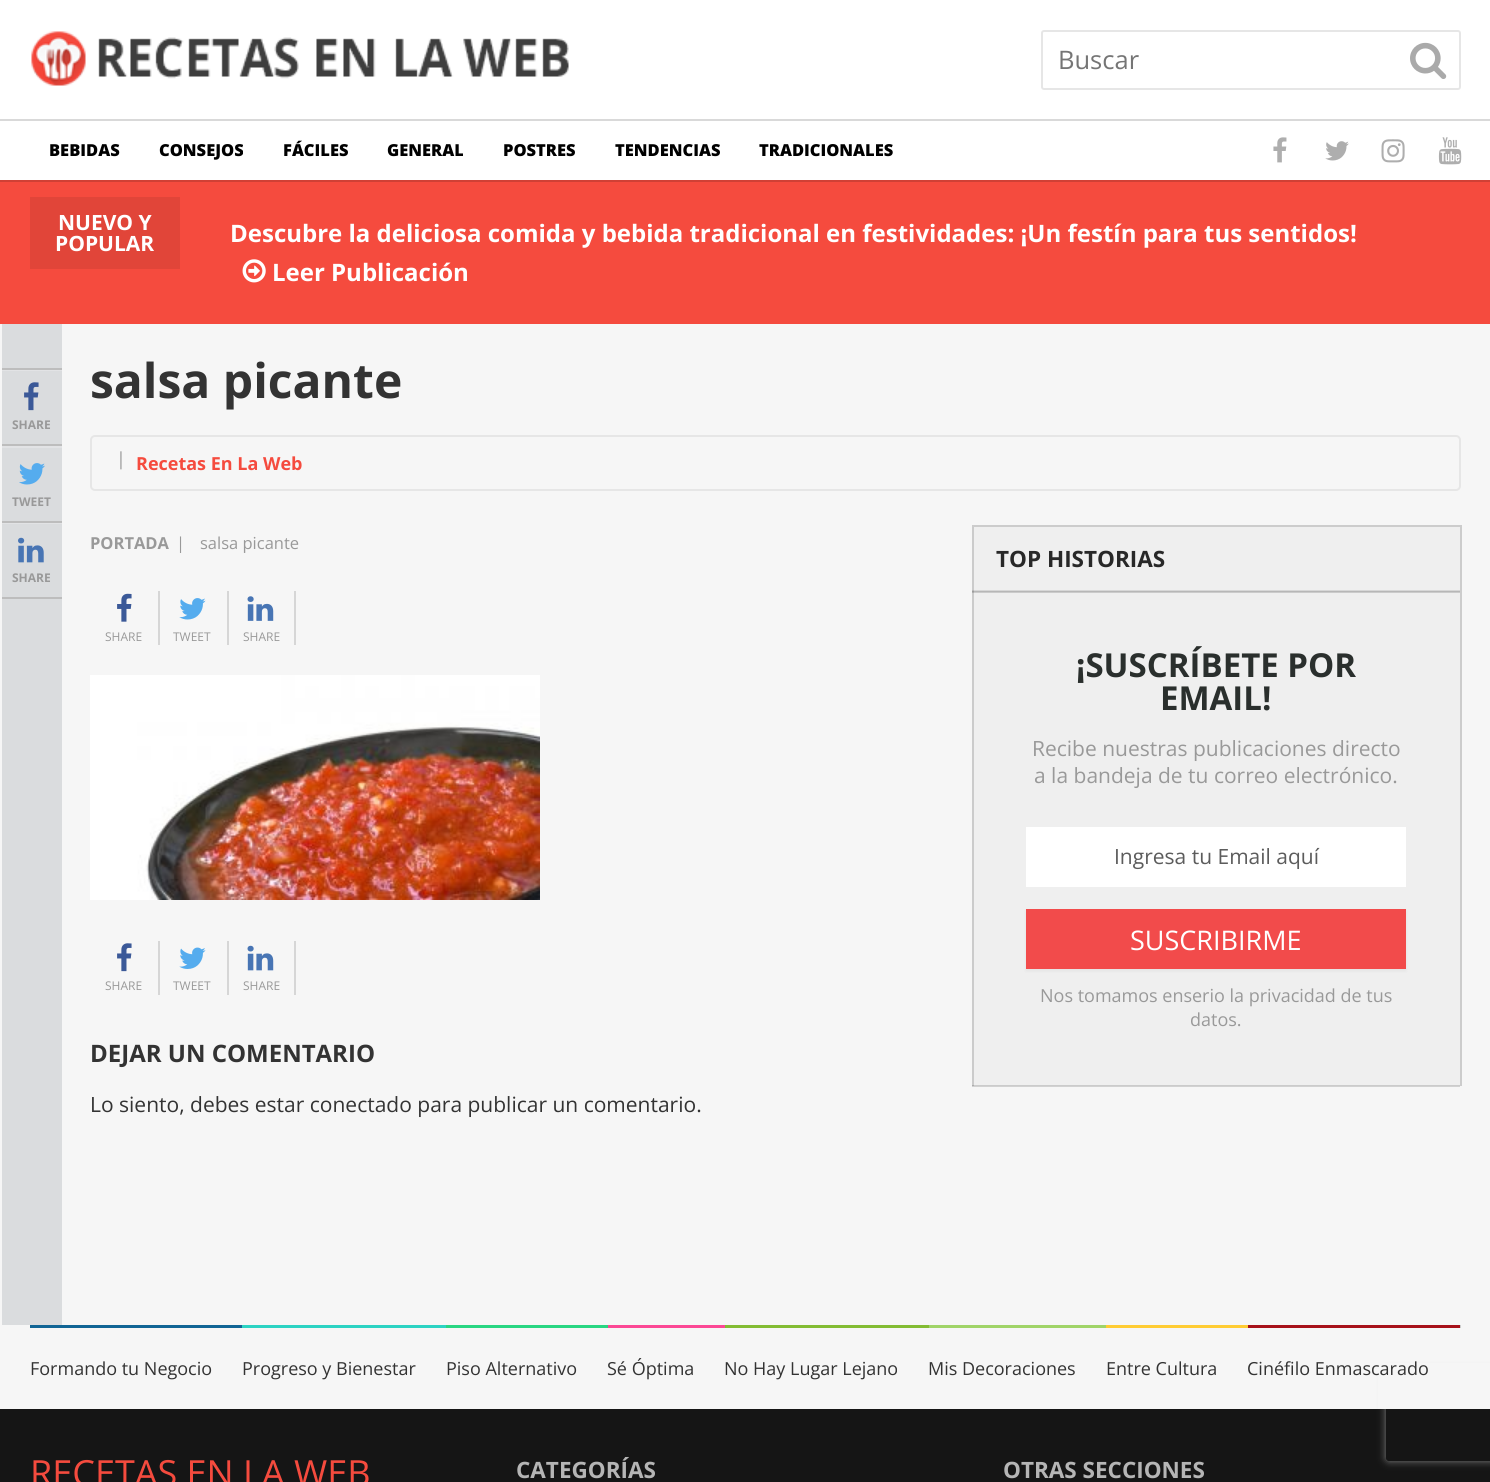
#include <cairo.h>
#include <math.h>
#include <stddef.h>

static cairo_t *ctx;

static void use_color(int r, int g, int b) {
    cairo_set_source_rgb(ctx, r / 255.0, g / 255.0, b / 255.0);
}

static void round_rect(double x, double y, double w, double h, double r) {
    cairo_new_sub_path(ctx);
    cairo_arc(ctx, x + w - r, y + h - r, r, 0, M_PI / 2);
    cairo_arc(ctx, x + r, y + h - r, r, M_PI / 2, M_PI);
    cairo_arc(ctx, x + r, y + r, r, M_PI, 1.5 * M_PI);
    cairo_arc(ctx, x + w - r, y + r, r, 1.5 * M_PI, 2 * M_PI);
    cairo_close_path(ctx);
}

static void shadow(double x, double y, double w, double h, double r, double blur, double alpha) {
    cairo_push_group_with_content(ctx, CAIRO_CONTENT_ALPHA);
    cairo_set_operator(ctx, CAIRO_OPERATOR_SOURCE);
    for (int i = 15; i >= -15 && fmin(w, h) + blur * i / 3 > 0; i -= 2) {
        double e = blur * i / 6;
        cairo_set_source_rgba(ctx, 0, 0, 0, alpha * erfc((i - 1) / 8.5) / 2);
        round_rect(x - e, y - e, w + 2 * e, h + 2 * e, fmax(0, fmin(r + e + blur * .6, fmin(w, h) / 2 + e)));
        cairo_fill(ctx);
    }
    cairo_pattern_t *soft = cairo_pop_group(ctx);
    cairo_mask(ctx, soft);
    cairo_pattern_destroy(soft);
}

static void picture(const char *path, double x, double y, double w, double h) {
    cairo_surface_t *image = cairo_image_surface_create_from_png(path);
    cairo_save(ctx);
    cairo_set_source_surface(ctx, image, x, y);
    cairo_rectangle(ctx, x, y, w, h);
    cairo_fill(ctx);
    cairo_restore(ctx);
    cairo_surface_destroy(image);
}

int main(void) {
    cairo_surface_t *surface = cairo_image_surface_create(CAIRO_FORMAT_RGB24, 1490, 1482);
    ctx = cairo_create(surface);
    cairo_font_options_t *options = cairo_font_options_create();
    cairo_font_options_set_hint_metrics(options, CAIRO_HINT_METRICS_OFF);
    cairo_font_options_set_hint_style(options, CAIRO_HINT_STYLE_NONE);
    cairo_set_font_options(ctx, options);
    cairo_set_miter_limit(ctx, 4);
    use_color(246, 246, 246);
    cairo_paint(ctx);
    use_color(209, 209, 209);
    cairo_rectangle(ctx, 972, 1086, 488, 1);
    cairo_fill(ctx);
    use_color(255, 255, 255);
    cairo_rectangle(ctx, 0, 0, 1490, 119);
    cairo_fill(ctx);
    picture("img1.png", 31, 31, 538, 55);
    round_rect(1042, 31, 418, 58, 2);
    use_color(230, 230, 230);
    cairo_stroke(ctx);
    cairo_select_font_face(ctx, "Open Sans", CAIRO_FONT_SLANT_NORMAL, CAIRO_FONT_WEIGHT_NORMAL);
    cairo_set_font_size(ctx, 25.5);
    use_color(117, 117, 117);
    cairo_move_to(ctx, 1058, 69);
    cairo_show_text(ctx, "Buscar");
    picture("img2.png", 1410, 42, 37, 37);
    use_color(208, 64, 53);
    cairo_rectangle(ctx, 0, 180, 1490, 2);
    cairo_fill(ctx);
    use_color(255, 255, 255);
    cairo_rectangle(ctx, 0, 121, 1490, 59);
    cairo_fill(ctx);
    use_color(217, 217, 217);
    cairo_rectangle(ctx, 0, 119, 1490, 2);
    cairo_fill(ctx);
    cairo_select_font_face(ctx, "Open Sans ExtraBold", CAIRO_FONT_SLANT_NORMAL, CAIRO_FONT_WEIGHT_NORMAL);
    cairo_set_font_size(ctx, 16.5);
    use_color(0, 0, 0);
    cairo_move_to(ctx, 49, 156);
    cairo_show_text(ctx, "BEBIDAS");
    cairo_move_to(ctx, 159, 156);
    cairo_show_text(ctx, "CONSEJOS");
    cairo_move_to(ctx, 283, 156);
    cairo_show_text(ctx, "FÁCILES");
    cairo_move_to(ctx, 387, 156);
    cairo_show_text(ctx, "GENERAL");
    cairo_move_to(ctx, 503, 156);
    cairo_show_text(ctx, "POSTRES");
    cairo_move_to(ctx, 615, 156);
    cairo_show_text(ctx, "TENDENCIAS");
    cairo_move_to(ctx, 759, 156);
    cairo_show_text(ctx, "TRADICIONALES");
    picture("img3.png", 1273, 137, 14, 26);
    picture("img4.png", 1325, 141, 24, 20);
    picture("img5.png", 1381, 139, 24, 24);
    picture("img6.png", 1438, 137, 24, 28);
    use_color(245, 75, 62);
    cairo_rectangle(ctx, 0, 182, 1490, 142);
    cairo_fill(ctx);
    use_color(225, 69, 57);
    cairo_rectangle(ctx, 30, 197, 150, 72);
    cairo_fill(ctx);
    cairo_select_font_face(ctx, "Open Sans", CAIRO_FONT_SLANT_NORMAL, CAIRO_FONT_WEIGHT_BOLD);
    cairo_set_font_size(ctx, 21);
    use_color(255, 255, 255);
    cairo_move_to(ctx, 58, 230);
    cairo_show_text(ctx, "NUEVO Y");
    cairo_move_to(ctx, 55, 251);
    cairo_show_text(ctx, "POPULAR");
    cairo_set_font_size(ctx, 24);
    cairo_move_to(ctx, 230, 242);
    cairo_show_text(ctx, "Descubre la deliciosa comida y bebida tradicional en festividades: ¡Un festín para tus sentidos!");
    picture("img7.png", 242, 259, 24, 24);
    cairo_move_to(ctx, 272, 281);
    cairo_show_text(ctx, "Leer Publicación");
    use_color(218, 220, 222);
    cairo_rectangle(ctx, 2, 324, 60, 1001);
    cairo_fill(ctx);
    use_color(226, 227, 229);
    cairo_rectangle(ctx, 2, 370, 60, 1);
    cairo_fill(ctx);
    use_color(189, 189, 189);
    cairo_rectangle(ctx, 2, 368, 60, 2);
    cairo_fill(ctx);
    picture("img8.png", 24, 382, 15, 29);
    cairo_set_font_size(ctx, 12);
    use_color(153, 153, 153);
    cairo_move_to(ctx, 12, 429);
    cairo_show_text(ctx, "SHARE");
    use_color(226, 227, 229);
    cairo_rectangle(ctx, 2, 446, 60, 2);
    cairo_fill(ctx);
    use_color(189, 189, 189);
    cairo_rectangle(ctx, 2, 444, 60, 2);
    cairo_fill(ctx);
    picture("img9.png", 19, 463, 26, 22);
    use_color(153, 153, 153);
    cairo_move_to(ctx, 12, 506);
    cairo_show_text(ctx, "TWEET");
    use_color(226, 227, 229);
    cairo_rectangle(ctx, 2, 523, 60, 1);
    cairo_fill(ctx);
    use_color(189, 189, 189);
    cairo_rectangle(ctx, 2, 521, 60, 2);
    cairo_fill(ctx);
    cairo_rectangle(ctx, 2, 597, 60, 2);
    cairo_fill(ctx);
    picture("img10.png", 18, 537, 26, 26);
    use_color(153, 153, 153);
    cairo_move_to(ctx, 12, 582);
    cairo_show_text(ctx, "SHARE");
    cairo_set_font_size(ctx, 48);
    use_color(51, 51, 51);
    cairo_move_to(ctx, 90, 398);
    cairo_show_text(ctx, "salsa picante");
    round_rect(91, 436, 1369, 54, 4);
    use_color(230, 230, 230);
    cairo_stroke(ctx);
    cairo_select_font_face(ctx, "Open Sans", CAIRO_FONT_SLANT_NORMAL, CAIRO_FONT_WEIGHT_NORMAL);
    cairo_set_font_size(ctx, 18);
    use_color(153, 153, 153);
    cairo_move_to(ctx, 116, 465);
    cairo_show_text(ctx, "|");
    cairo_select_font_face(ctx, "Open Sans", CAIRO_FONT_SLANT_NORMAL, CAIRO_FONT_WEIGHT_BOLD);
    use_color(245, 75, 62);
    cairo_move_to(ctx, 136, 470);
    cairo_show_text(ctx, "Recetas En La Web");
    cairo_set_font_size(ctx, 16.5);
    use_color(153, 153, 153);
    cairo_move_to(ctx, 90, 549);
    cairo_show_text(ctx, "PORTADA");
    cairo_select_font_face(ctx, "Open Sans", CAIRO_FONT_SLANT_NORMAL, CAIRO_FONT_WEIGHT_NORMAL);
    cairo_move_to(ctx, 176, 549);
    cairo_show_text(ctx, "|");
    cairo_move_to(ctx, 200, 549);
    cairo_show_text(ctx, "salsa picante");
    use_color(214, 214, 214);
    cairo_rectangle(ctx, 158, 591, 2, 54);
    cairo_fill(ctx);
    picture("img11.png", 117, 593, 15, 29);
    cairo_set_font_size(ctx, 12);
    use_color(153, 153, 153);
    cairo_move_to(ctx, 105, 641);
    cairo_show_text(ctx, "SHARE");
    use_color(214, 214, 214);
    cairo_rectangle(ctx, 227, 591, 2, 54);
    cairo_fill(ctx);
    picture("img12.png", 179, 598, 27, 22);
    use_color(153, 153, 153);
    cairo_move_to(ctx, 173, 641);
    cairo_show_text(ctx, "TWEET");
    use_color(214, 214, 214);
    cairo_rectangle(ctx, 294, 591, 2, 54);
    cairo_fill(ctx);
    picture("img13.png", 247, 596, 27, 25);
    use_color(153, 153, 153);
    cairo_move_to(ctx, 243, 641);
    cairo_show_text(ctx, "SHARE");
    picture("img14.png", 90, 675, 450, 225);
    use_color(214, 214, 214);
    cairo_rectangle(ctx, 158, 941, 2, 54);
    cairo_fill(ctx);
    picture("img15.png", 117, 943, 15, 29);
    use_color(153, 153, 153);
    cairo_move_to(ctx, 105, 990);
    cairo_show_text(ctx, "SHARE");
    use_color(214, 214, 214);
    cairo_rectangle(ctx, 227, 941, 2, 54);
    cairo_fill(ctx);
    picture("img16.png", 179, 947, 27, 22);
    use_color(153, 153, 153);
    cairo_move_to(ctx, 173, 990);
    cairo_show_text(ctx, "TWEET");
    use_color(214, 214, 214);
    cairo_rectangle(ctx, 294, 941, 2, 54);
    cairo_fill(ctx);
    picture("img17.png", 247, 945, 27, 26);
    use_color(153, 153, 153);
    cairo_move_to(ctx, 243, 990);
    cairo_show_text(ctx, "SHARE");
    cairo_select_font_face(ctx, "Open Sans", CAIRO_FONT_SLANT_NORMAL, CAIRO_FONT_WEIGHT_BOLD);
    cairo_set_font_size(ctx, 24);
    use_color(51, 51, 51);
    cairo_move_to(ctx, 90, 1062);
    cairo_show_text(ctx, "DEJAR UN COMENTARIO");
    cairo_select_font_face(ctx, "Open Sans", CAIRO_FONT_SLANT_NORMAL, CAIRO_FONT_WEIGHT_NORMAL);
    cairo_set_font_size(ctx, 21);
    cairo_move_to(ctx, 90, 1112);
    cairo_show_text(ctx, "Lo siento, debes estar conectado para publicar un comentario.");
    use_color(204, 204, 204);
    cairo_rectangle(ctx, 972, 525, 489, 2);
    cairo_fill(ctx);
    cairo_rectangle(ctx, 1460, 525, 2, 561);
    cairo_fill(ctx);
    use_color(239, 239, 239);
    cairo_rectangle(ctx, 974, 527, 486, 63);
    cairo_fill(ctx);
    use_color(203, 203, 203);
    cairo_rectangle(ctx, 972, 527, 2, 559);
    cairo_fill(ctx);
    use_color(215, 215, 215);
    cairo_rectangle(ctx, 972, 590, 488, 1);
    cairo_fill(ctx);
    use_color(183, 183, 183);
    cairo_rectangle(ctx, 972, 590, 2, 1);
    cairo_fill(ctx);
    use_color(203, 203, 203);
    cairo_rectangle(ctx, 972, 592, 488, 1);
    cairo_fill(ctx);
    use_color(173, 173, 173);
    cairo_rectangle(ctx, 972, 592, 2, 1);
    cairo_fill(ctx);
    use_color(183, 183, 183);
    cairo_rectangle(ctx, 972, 591, 488, 1);
    cairo_fill(ctx);
    use_color(156, 156, 156);
    cairo_rectangle(ctx, 972, 591, 2, 1);
    cairo_fill(ctx);
    cairo_select_font_face(ctx, "Open Sans", CAIRO_FONT_SLANT_NORMAL, CAIRO_FONT_WEIGHT_BOLD);
    cairo_set_font_size(ctx, 22.5);
    use_color(40, 40, 40);
    cairo_move_to(ctx, 996, 567);
    cairo_show_text(ctx, "TOP HISTORIAS");
    use_color(239, 239, 239);
    cairo_rectangle(ctx, 974, 593, 486, 492);
    cairo_fill(ctx);
    use_color(203, 203, 203);
    cairo_rectangle(ctx, 972, 1085, 488, 1);
    cairo_fill(ctx);
    use_color(173, 173, 173);
    cairo_rectangle(ctx, 972, 1085, 2, 1);
    cairo_fill(ctx);
    cairo_set_font_size(ctx, 33);
    use_color(42, 47, 45);
    cairo_move_to(ctx, 1076, 677);
    cairo_show_text(ctx, "¡SUSCRÍBETE POR");
    cairo_move_to(ctx, 1160, 710);
    cairo_show_text(ctx, "EMAIL!");
    cairo_select_font_face(ctx, "Open Sans", CAIRO_FONT_SLANT_NORMAL, CAIRO_FONT_WEIGHT_NORMAL);
    cairo_set_font_size(ctx, 21);
    use_color(153, 153, 153);
    cairo_move_to(ctx, 1032, 756);
    cairo_show_text(ctx, "Recibe nuestras publicaciones directo");
    cairo_move_to(ctx, 1034, 783);
    cairo_show_text(ctx, "a la bandeja de tu correo electrónico.");
    use_color(255, 255, 255);
    cairo_rectangle(ctx, 1026, 827, 380, 60);
    cairo_fill(ctx);
    use_color(92, 92, 92);
    cairo_move_to(ctx, 1114, 864);
    cairo_show_text(ctx, "Ingresa tu Email aquí");
    use_color(0, 0, 0);
    shadow(1026, 911, 380, 60, 0, 1.5, 0.05);
    use_color(242, 75, 75);
    cairo_rectangle(ctx, 1026, 909, 380, 60);
    cairo_fill(ctx);
    cairo_set_font_size(ctx, 27);
    use_color(255, 255, 255);
    cairo_move_to(ctx, 1130, 950);
    cairo_show_text(ctx, "SUSCRIBIRME");
    cairo_set_font_size(ctx, 18);
    use_color(153, 153, 153);
    cairo_move_to(ctx, 1040, 1002);
    cairo_show_text(ctx, "Nos tomamos enserio la privacidad de tus");
    cairo_move_to(ctx, 1190, 1026);
    cairo_show_text(ctx, "datos.");
    use_color(21, 21, 21);
    cairo_rectangle(ctx, 0, 1409, 1490, 73);
    cairo_fill(ctx);
    cairo_save(ctx);
    cairo_set_fill_rule(ctx, CAIRO_FILL_RULE_EVEN_ODD);
    cairo_new_path(ctx);
    cairo_move_to(ctx, 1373, 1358);
    cairo_line_to(ctx, 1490, 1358);
    cairo_line_to(ctx, 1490, 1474);
    cairo_line_to(ctx, 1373, 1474);
    cairo_close_path(ctx);
    cairo_move_to(ctx, 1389, 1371);
    cairo_line_to(ctx, 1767, 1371);
    cairo_curve_to(ctx, 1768.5, 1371, 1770, 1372.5, 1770, 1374);
    cairo_line_to(ctx, 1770, 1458);
    cairo_curve_to(ctx, 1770, 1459.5, 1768.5, 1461, 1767, 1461);
    cairo_line_to(ctx, 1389, 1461);
    cairo_curve_to(ctx, 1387.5, 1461, 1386, 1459.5, 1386, 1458);
    cairo_line_to(ctx, 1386, 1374);
    cairo_curve_to(ctx, 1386, 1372.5, 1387.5, 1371, 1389, 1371);
    cairo_close_path(ctx);
    cairo_clip(ctx);
    use_color(128, 128, 128);
    shadow(1386, 1371, 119, 90, 3, 4, 1);
    cairo_restore(ctx);
    use_color(246, 246, 246);
    cairo_rectangle(ctx, 1378, 1363, 112, 46);
    cairo_fill(ctx);
    use_color(204, 204, 204);
    cairo_rectangle(ctx, 1460, 1325, 1, 3);
    cairo_fill(ctx);
    use_color(17, 101, 149);
    cairo_rectangle(ctx, 30, 1325, 212, 3);
    cairo_fill(ctx);
    use_color(51, 51, 51);
    cairo_move_to(ctx, 30, 1375);
    cairo_show_text(ctx, "Formando tu Negocio");
    use_color(44, 211, 195);
    cairo_rectangle(ctx, 242, 1325, 204, 3);
    cairo_fill(ctx);
    use_color(51, 51, 51);
    cairo_move_to(ctx, 242, 1375);
    cairo_show_text(ctx, "Progreso y Bienestar");
    use_color(41, 214, 130);
    cairo_rectangle(ctx, 446, 1325, 162, 3);
    cairo_fill(ctx);
    use_color(51, 51, 51);
    cairo_move_to(ctx, 446, 1375);
    cairo_show_text(ctx, "Piso Alternativo");
    use_color(252, 72, 149);
    cairo_rectangle(ctx, 608, 1325, 117, 3);
    cairo_fill(ctx);
    use_color(51, 51, 51);
    cairo_move_to(ctx, 607, 1375);
    cairo_show_text(ctx, "Sé Óptima");
    use_color(131, 188, 51);
    cairo_rectangle(ctx, 725, 1325, 204, 3);
    cairo_fill(ctx);
    use_color(51, 51, 51);
    cairo_move_to(ctx, 724, 1375);
    cairo_show_text(ctx, "No Hay Lugar Lejano");
    use_color(160, 212, 104);
    cairo_rectangle(ctx, 929, 1325, 177, 3);
    cairo_fill(ctx);
    use_color(51, 51, 51);
    cairo_move_to(ctx, 928, 1375);
    cairo_show_text(ctx, "Mis Decoraciones");
    use_color(255, 204, 51);
    cairo_rectangle(ctx, 1106, 1325, 142, 3);
    cairo_fill(ctx);
    use_color(51, 51, 51);
    cairo_move_to(ctx, 1106, 1375);
    cairo_show_text(ctx, "Entre Cultura");
    use_color(167, 18, 26);
    cairo_rectangle(ctx, 1248, 1325, 212, 3);
    cairo_fill(ctx);
    use_color(51, 51, 51);
    cairo_move_to(ctx, 1247, 1375);
    cairo_show_text(ctx, "Cinéfilo Enmascarado");
    cairo_set_font_size(ctx, 36);
    use_color(245, 75, 62);
    cairo_move_to(ctx, 30, 1486);
    cairo_show_text(ctx, "RECETAS EN LA WEB");
    cairo_select_font_face(ctx, "Open Sans", CAIRO_FONT_SLANT_NORMAL, CAIRO_FONT_WEIGHT_BOLD);
    cairo_set_font_size(ctx, 22.5);
    use_color(181, 181, 181);
    cairo_move_to(ctx, 516, 1478);
    cairo_show_text(ctx, "CATEGORÍAS");
    cairo_move_to(ctx, 1003, 1478);
    cairo_show_text(ctx, "OTRAS SECCIONES");
    cairo_surface_write_to_png(surface, "result.png");
    cairo_font_options_destroy(options);
    cairo_destroy(ctx);
    cairo_surface_destroy(surface);
    return 0;
}
